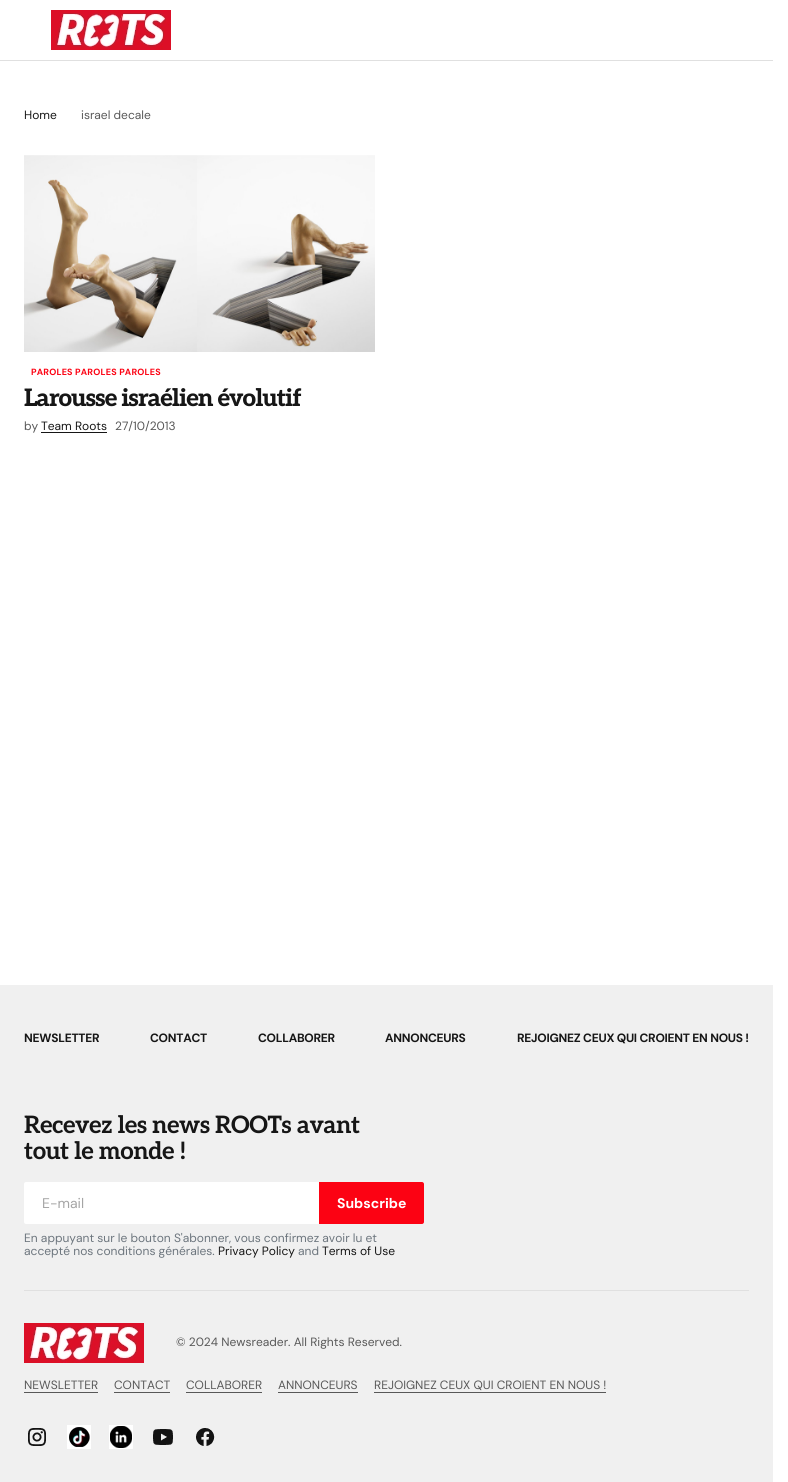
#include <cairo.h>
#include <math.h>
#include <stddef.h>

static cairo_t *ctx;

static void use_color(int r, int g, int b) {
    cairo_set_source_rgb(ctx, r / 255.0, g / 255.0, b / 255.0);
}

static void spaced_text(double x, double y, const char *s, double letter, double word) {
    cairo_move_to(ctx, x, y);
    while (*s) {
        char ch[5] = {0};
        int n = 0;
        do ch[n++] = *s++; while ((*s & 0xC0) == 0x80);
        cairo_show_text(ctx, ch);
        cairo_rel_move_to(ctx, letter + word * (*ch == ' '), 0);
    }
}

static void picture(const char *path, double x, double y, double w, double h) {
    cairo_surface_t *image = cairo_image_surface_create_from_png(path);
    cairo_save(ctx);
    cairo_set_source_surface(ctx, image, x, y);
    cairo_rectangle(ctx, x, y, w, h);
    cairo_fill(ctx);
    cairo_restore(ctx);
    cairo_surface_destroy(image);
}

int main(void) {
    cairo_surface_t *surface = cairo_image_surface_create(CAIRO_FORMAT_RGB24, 788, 1482);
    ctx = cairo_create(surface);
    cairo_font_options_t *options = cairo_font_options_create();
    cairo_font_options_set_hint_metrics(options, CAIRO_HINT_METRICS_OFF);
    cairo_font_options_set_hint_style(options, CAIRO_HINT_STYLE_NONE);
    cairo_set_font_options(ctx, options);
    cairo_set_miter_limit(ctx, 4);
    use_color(255, 255, 255);
    cairo_paint(ctx);
    picture("img1.png", 51, 10, 120, 40);
    use_color(224, 224, 224);
    cairo_rectangle(ctx, 0, 60, 773, 1);
    cairo_fill(ctx);
    cairo_select_font_face(ctx, "DM Sans", CAIRO_FONT_SLANT_NORMAL, CAIRO_FONT_WEIGHT_NORMAL);
    cairo_set_font_size(ctx, 12);
    use_color(22, 22, 22);
    cairo_move_to(ctx, 24, 119);
    cairo_show_text(ctx, "Home");
    use_color(88, 88, 88);
    cairo_move_to(ctx, 81, 119);
    cairo_show_text(ctx, "israel decale");
    picture("img2.png", 24, 155, 351, 197);
    cairo_select_font_face(ctx, "DM Sans", CAIRO_FONT_SLANT_NORMAL, CAIRO_FONT_WEIGHT_BOLD);
    cairo_set_font_size(ctx, 9);
    use_color(252, 2, 19);
    spaced_text(31, 375, "PAROLES PAROLES PAROLES", 0.2, 0);
    cairo_select_font_face(ctx, "Aleo ExtraBold", CAIRO_FONT_SLANT_NORMAL, CAIRO_FONT_WEIGHT_NORMAL);
    cairo_set_font_size(ctx, 24);
    use_color(22, 22, 22);
    spaced_text(24, 406, "Larousse israélien évolutif", -0.95, 0);
    cairo_select_font_face(ctx, "DM Sans", CAIRO_FONT_SLANT_NORMAL, CAIRO_FONT_WEIGHT_NORMAL);
    cairo_set_font_size(ctx, 12);
    use_color(88, 88, 88);
    cairo_move_to(ctx, 24, 430);
    cairo_show_text(ctx, "by");
    use_color(22, 22, 22);
    cairo_rectangle(ctx, 41, 432, 66, 1);
    cairo_fill(ctx);
    cairo_move_to(ctx, 41, 430);
    cairo_show_text(ctx, "Team Roots");
    use_color(88, 88, 88);
    cairo_move_to(ctx, 115, 430);
    cairo_show_text(ctx, "27/10/2013");
    use_color(240, 240, 240);
    cairo_rectangle(ctx, 0, 985, 773, 497);
    cairo_fill(ctx);
    use_color(224, 224, 224);
    cairo_rectangle(ctx, 24, 1290, 725, 1);
    cairo_fill(ctx);
    cairo_select_font_face(ctx, "DM Sans", CAIRO_FONT_SLANT_NORMAL, CAIRO_FONT_WEIGHT_BOLD);
    use_color(22, 22, 22);
    spaced_text(24, 1042, "NEWSLETTER", -0.25, 0);
    spaced_text(150, 1042, "CONTACT", -0.25, 0);
    spaced_text(258, 1042, "COLLABORER", -0.25, 0);
    spaced_text(385, 1042, "ANNONCEURS", -0.25, 0);
    spaced_text(517, 1042, "REJOIGNEZ CEUX QUI CROIENT EN NOUS !", -0.25, 0);
    cairo_select_font_face(ctx, "Aleo", CAIRO_FONT_SLANT_NORMAL, CAIRO_FONT_WEIGHT_BOLD);
    cairo_set_font_size(ctx, 24);
    spaced_text(24, 1133, "Recevez les news ROOTs avant", -0.5, 0);
    spaced_text(24, 1159, "tout le monde !", -0.5, 0);
    use_color(255, 255, 255);
    cairo_new_path(ctx);
    cairo_move_to(ctx, 26, 1182);
    cairo_line_to(ctx, 319, 1182);
    cairo_line_to(ctx, 319, 1224);
    cairo_line_to(ctx, 26, 1224);
    cairo_curve_to(ctx, 25, 1224, 24, 1223, 24, 1222);
    cairo_line_to(ctx, 24, 1184);
    cairo_curve_to(ctx, 24, 1183, 25, 1182, 26, 1182);
    cairo_close_path(ctx);
    cairo_fill(ctx);
    cairo_select_font_face(ctx, "DM Sans", CAIRO_FONT_SLANT_NORMAL, CAIRO_FONT_WEIGHT_NORMAL);
    cairo_set_font_size(ctx, 14);
    use_color(165, 165, 165);
    cairo_move_to(ctx, 42, 1208);
    cairo_show_text(ctx, "E-mail");
    use_color(252, 2, 19);
    cairo_new_path(ctx);
    cairo_move_to(ctx, 319, 1182);
    cairo_line_to(ctx, 422, 1182);
    cairo_curve_to(ctx, 423, 1182, 424, 1183, 424, 1184);
    cairo_line_to(ctx, 424, 1222);
    cairo_curve_to(ctx, 424, 1223, 423, 1224, 422, 1224);
    cairo_line_to(ctx, 319, 1224);
    cairo_close_path(ctx);
    cairo_fill(ctx);
    cairo_select_font_face(ctx, "DM Sans", CAIRO_FONT_SLANT_NORMAL, CAIRO_FONT_WEIGHT_BOLD);
    use_color(255, 255, 255);
    cairo_move_to(ctx, 337, 1208);
    cairo_show_text(ctx, "Subscribe");
    cairo_select_font_face(ctx, "DM Sans", CAIRO_FONT_SLANT_NORMAL, CAIRO_FONT_WEIGHT_NORMAL);
    cairo_set_font_size(ctx, 12);
    use_color(108, 117, 125);
    cairo_move_to(ctx, 24, 1242);
    cairo_show_text(ctx, "En appuyant sur le bouton S'abonner, vous confirmez avoir lu et");
    cairo_move_to(ctx, 24, 1255);
    cairo_show_text(ctx, "accepté nos conditions générales.");
    use_color(22, 22, 22);
    cairo_move_to(ctx, 218, 1255);
    cairo_show_text(ctx, "Privacy Policy");
    use_color(108, 117, 125);
    cairo_move_to(ctx, 298, 1255);
    cairo_show_text(ctx, "and");
    use_color(22, 22, 22);
    cairo_move_to(ctx, 322, 1255);
    cairo_show_text(ctx, "Terms of Use");
    picture("img1.png", 24, 1323, 120, 40);
    use_color(88, 88, 88);
    cairo_move_to(ctx, 176, 1346);
    cairo_show_text(ctx, "© 2024 Newsreader. All Rights Reserved.");
    cairo_move_to(ctx, 24, 1389);
    cairo_show_text(ctx, "NEWSLETTER");
    cairo_rectangle(ctx, 24, 1392, 74, 1);
    cairo_fill(ctx);
    cairo_move_to(ctx, 114, 1389);
    cairo_show_text(ctx, "CONTACT");
    cairo_rectangle(ctx, 114, 1392, 56, 1);
    cairo_fill(ctx);
    cairo_move_to(ctx, 186, 1389);
    cairo_show_text(ctx, "COLLABORER");
    cairo_rectangle(ctx, 186, 1392, 76, 1);
    cairo_fill(ctx);
    cairo_move_to(ctx, 278, 1389);
    cairo_show_text(ctx, "ANNONCEURS");
    cairo_rectangle(ctx, 278, 1392, 80, 1);
    cairo_fill(ctx);
    cairo_move_to(ctx, 374, 1389);
    cairo_show_text(ctx, "REJOIGNEZ CEUX QUI CROIENT EN NOUS !");
    cairo_rectangle(ctx, 374, 1392, 232, 1);
    cairo_fill(ctx);
    picture("img3.png", 28, 1428, 18, 18);
    picture("img4.png", 67, 1425, 24, 24);
    picture("img5.png", 109, 1425, 24, 24);
    picture("img6.png", 153, 1429, 20, 16);
    picture("img7.png", 196, 1428, 19, 18);
    cairo_surface_write_to_png(surface, "result.png");
    cairo_font_options_destroy(options);
    cairo_destroy(ctx);
    cairo_surface_destroy(surface);
    return 0;
}
